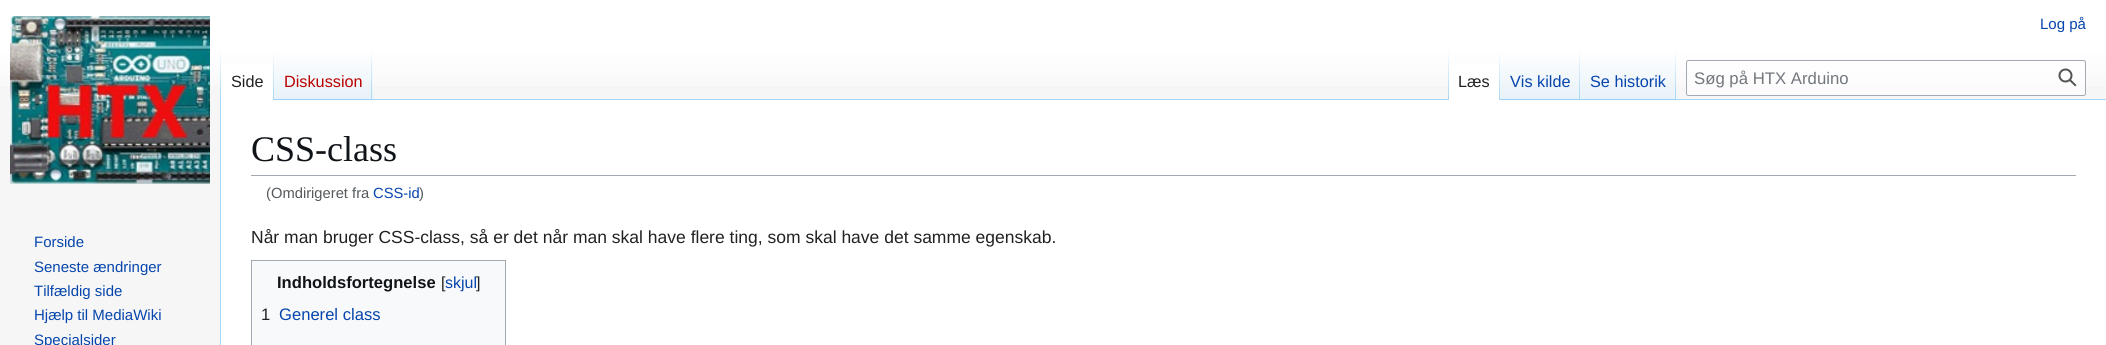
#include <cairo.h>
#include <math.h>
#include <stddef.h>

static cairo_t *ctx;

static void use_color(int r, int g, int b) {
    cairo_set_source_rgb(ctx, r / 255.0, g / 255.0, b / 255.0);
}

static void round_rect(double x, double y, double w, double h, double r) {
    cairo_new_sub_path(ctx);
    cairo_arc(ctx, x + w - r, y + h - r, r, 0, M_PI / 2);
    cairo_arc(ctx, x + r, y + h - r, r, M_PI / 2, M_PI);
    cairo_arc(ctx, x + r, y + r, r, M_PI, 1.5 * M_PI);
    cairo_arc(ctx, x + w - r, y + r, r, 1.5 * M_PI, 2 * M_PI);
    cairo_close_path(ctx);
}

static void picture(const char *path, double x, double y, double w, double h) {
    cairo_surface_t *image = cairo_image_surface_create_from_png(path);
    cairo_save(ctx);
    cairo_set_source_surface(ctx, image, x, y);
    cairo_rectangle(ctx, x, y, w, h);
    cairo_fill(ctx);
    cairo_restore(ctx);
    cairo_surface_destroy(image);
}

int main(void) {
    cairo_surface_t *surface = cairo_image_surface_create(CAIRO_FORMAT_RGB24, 2106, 345);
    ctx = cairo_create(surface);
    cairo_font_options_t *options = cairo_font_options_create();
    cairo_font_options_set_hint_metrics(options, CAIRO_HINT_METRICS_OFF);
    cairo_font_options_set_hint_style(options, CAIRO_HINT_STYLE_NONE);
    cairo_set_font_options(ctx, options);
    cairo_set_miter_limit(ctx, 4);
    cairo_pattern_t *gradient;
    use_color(246, 246, 246);
    cairo_paint(ctx);
    gradient = cairo_pattern_create_linear(1053, 0, 1053, 100);
    cairo_pattern_add_color_stop_rgba(gradient, 0.5, 1, 1, 1, 1);
    cairo_pattern_add_color_stop_rgba(gradient, 1, 0.965, 0.965, 0.965, 1);
    cairo_set_source(ctx, gradient);
    cairo_pattern_destroy(gradient);
    cairo_rectangle(ctx, 0, 0, 2106, 86);
    cairo_fill(ctx);
    cairo_select_font_face(ctx, "Liberation Sans", CAIRO_FONT_SLANT_NORMAL, CAIRO_FONT_WEIGHT_NORMAL);
    cairo_set_font_size(ctx, 15);
    use_color(6, 69, 173);
    cairo_move_to(ctx, 2040, 29);
    cairo_show_text(ctx, "Log på");
    use_color(167, 215, 249);
    cairo_rectangle(ctx, 220, 99, 1, 246);
    cairo_fill(ctx);
    gradient = cairo_pattern_create_linear(221, 50, 221, 100);
    cairo_pattern_add_color_stop_rgba(gradient, 0, 0.655, 0.843, 0.976, 0);
    cairo_pattern_add_color_stop_rgba(gradient, 1, 0.655, 0.843, 0.976, 1);
    cairo_set_source(ctx, gradient);
    cairo_pattern_destroy(gradient);
    cairo_rectangle(ctx, 220, 50, 1, 50);
    cairo_fill(ctx);
    use_color(255, 255, 255);
    cairo_rectangle(ctx, 221, 64, 52, 36);
    cairo_fill(ctx);
    gradient = cairo_pattern_create_linear(273, 50, 273, 100);
    cairo_pattern_add_color_stop_rgba(gradient, 0, 1, 1, 1, 1);
    cairo_pattern_add_color_stop_rgba(gradient, 1, 0.655, 0.843, 0.976, 1);
    cairo_set_source(ctx, gradient);
    cairo_pattern_destroy(gradient);
    cairo_rectangle(ctx, 273, 50, 1, 50);
    cairo_fill(ctx);
    cairo_set_font_size(ctx, 16.25);
    use_color(32, 33, 34);
    cairo_move_to(ctx, 231, 87);
    cairo_show_text(ctx, "Side");
    gradient = cairo_pattern_create_linear(323, 100, 323, 50);
    cairo_pattern_add_color_stop_rgba(gradient, 0, 0.467, 0.757, 0.965, 1);
    cairo_pattern_add_color_stop_rgba(gradient, 0.03, 0.91, 0.949, 0.973, 1);
    cairo_pattern_add_color_stop_rgba(gradient, 1, 1, 1, 1, 1);
    cairo_set_source(ctx, gradient);
    cairo_pattern_destroy(gradient);
    cairo_rectangle(ctx, 274, 57, 99, 43);
    cairo_fill(ctx);
    gradient = cairo_pattern_create_linear(372, 50, 372, 100);
    cairo_pattern_add_color_stop_rgba(gradient, 0, 0.655, 0.843, 0.976, 0);
    cairo_pattern_add_color_stop_rgba(gradient, 1, 0.655, 0.843, 0.976, 1);
    cairo_set_source(ctx, gradient);
    cairo_pattern_destroy(gradient);
    cairo_rectangle(ctx, 371, 50, 1, 50);
    cairo_fill(ctx);
    use_color(186, 0, 0);
    cairo_move_to(ctx, 284, 87);
    cairo_show_text(ctx, "Diskussion");
    use_color(167, 215, 249);
    cairo_rectangle(ctx, 373, 99, 1733, 1);
    cairo_fill(ctx);
    gradient = cairo_pattern_create_linear(1448, 50, 1448, 100);
    cairo_pattern_add_color_stop_rgba(gradient, 0, 0.655, 0.843, 0.976, 0);
    cairo_pattern_add_color_stop_rgba(gradient, 1, 0.655, 0.843, 0.976, 1);
    cairo_set_source(ctx, gradient);
    cairo_pattern_destroy(gradient);
    cairo_rectangle(ctx, 1448, 50, 1, 50);
    cairo_fill(ctx);
    use_color(255, 255, 255);
    cairo_rectangle(ctx, 1449, 64, 50, 36);
    cairo_fill(ctx);
    gradient = cairo_pattern_create_linear(1499, 50, 1499, 100);
    cairo_pattern_add_color_stop_rgba(gradient, 0, 1, 1, 1, 1);
    cairo_pattern_add_color_stop_rgba(gradient, 1, 0.655, 0.843, 0.976, 1);
    cairo_set_source(ctx, gradient);
    cairo_pattern_destroy(gradient);
    cairo_rectangle(ctx, 1499, 50, 1, 50);
    cairo_fill(ctx);
    use_color(32, 33, 34);
    cairo_move_to(ctx, 1458, 87);
    cairo_show_text(ctx, "Læs");
    gradient = cairo_pattern_create_linear(1540, 100, 1540, 50);
    cairo_pattern_add_color_stop_rgba(gradient, 0, 0.467, 0.757, 0.965, 1);
    cairo_pattern_add_color_stop_rgba(gradient, 0.03, 0.91, 0.949, 0.973, 1);
    cairo_pattern_add_color_stop_rgba(gradient, 1, 1, 1, 1, 1);
    cairo_set_source(ctx, gradient);
    cairo_pattern_destroy(gradient);
    cairo_rectangle(ctx, 1500, 57, 80, 43);
    cairo_fill(ctx);
    gradient = cairo_pattern_create_linear(1579, 50, 1579, 100);
    cairo_pattern_add_color_stop_rgba(gradient, 0, 0.655, 0.843, 0.976, 0);
    cairo_pattern_add_color_stop_rgba(gradient, 1, 0.655, 0.843, 0.976, 1);
    cairo_set_source(ctx, gradient);
    cairo_pattern_destroy(gradient);
    cairo_rectangle(ctx, 1579, 50, 1, 50);
    cairo_fill(ctx);
    use_color(6, 69, 173);
    cairo_move_to(ctx, 1510, 87);
    cairo_show_text(ctx, "Vis kilde");
    gradient = cairo_pattern_create_linear(1628, 100, 1628, 50);
    cairo_pattern_add_color_stop_rgba(gradient, 0, 0.467, 0.757, 0.965, 1);
    cairo_pattern_add_color_stop_rgba(gradient, 0.03, 0.91, 0.949, 0.973, 1);
    cairo_pattern_add_color_stop_rgba(gradient, 1, 1, 1, 1, 1);
    cairo_set_source(ctx, gradient);
    cairo_pattern_destroy(gradient);
    cairo_rectangle(ctx, 1580, 57, 96, 43);
    cairo_fill(ctx);
    gradient = cairo_pattern_create_linear(1676, 50, 1676, 100);
    cairo_pattern_add_color_stop_rgba(gradient, 0, 0.655, 0.843, 0.976, 0);
    cairo_pattern_add_color_stop_rgba(gradient, 1, 0.655, 0.843, 0.976, 1);
    cairo_set_source(ctx, gradient);
    cairo_pattern_destroy(gradient);
    cairo_rectangle(ctx, 1675, 50, 1, 50);
    cairo_fill(ctx);
    use_color(6, 69, 173);
    cairo_move_to(ctx, 1590, 87);
    cairo_show_text(ctx, "Se historik");
    cairo_set_source_rgba(ctx, 1, 1, 1, 0.5);
    round_rect(1686.5, 60.5, 399, 35, 2);
    cairo_fill_preserve(ctx);
    use_color(162, 169, 177);
    cairo_set_line_width(ctx, 1);
    cairo_stroke(ctx);
    cairo_set_font_size(ctx, 16.75);
    use_color(114, 119, 125);
    cairo_move_to(ctx, 1694, 84);
    cairo_show_text(ctx, "Søg på HTX Arduino");
    picture("img1.png", 2058, 68, 19, 19);
    picture("img2.png", 10, 16, 200, 168);
    cairo_set_font_size(ctx, 15);
    use_color(6, 69, 173);
    cairo_move_to(ctx, 34, 247);
    cairo_show_text(ctx, "Forside");
    cairo_move_to(ctx, 34, 272);
    cairo_show_text(ctx, "Seneste ændringer");
    cairo_move_to(ctx, 34, 296);
    cairo_show_text(ctx, "Tilfældig side");
    cairo_move_to(ctx, 34, 320);
    cairo_show_text(ctx, "Hjælp til MediaWiki");
    cairo_move_to(ctx, 34, 345);
    cairo_show_text(ctx, "Specialsider");
    use_color(255, 255, 255);
    cairo_rectangle(ctx, 221, 100, 1885, 245);
    cairo_fill(ctx);
    use_color(162, 169, 177);
    cairo_rectangle(ctx, 251, 175, 1825, 1);
    cairo_fill(ctx);
    cairo_select_font_face(ctx, "Liberation Serif", CAIRO_FONT_SLANT_NORMAL, CAIRO_FONT_WEIGHT_NORMAL);
    cairo_set_font_size(ctx, 36);
    use_color(16, 20, 24);
    cairo_move_to(ctx, 251, 161);
    cairo_show_text(ctx, "CSS-class");
    cairo_select_font_face(ctx, "Liberation Sans", CAIRO_FONT_SLANT_NORMAL, CAIRO_FONT_WEIGHT_NORMAL);
    cairo_set_font_size(ctx, 14.75);
    use_color(84, 89, 93);
    cairo_move_to(ctx, 266, 198);
    cairo_show_text(ctx, "(Omdirigeret fra");
    use_color(6, 69, 173);
    cairo_move_to(ctx, 373, 198);
    cairo_show_text(ctx, "CSS-id");
    use_color(84, 89, 93);
    cairo_move_to(ctx, 419, 198);
    cairo_show_text(ctx, ")");
    cairo_set_font_size(ctx, 17.5);
    use_color(32, 33, 34);
    cairo_move_to(ctx, 251, 243);
    cairo_show_text(ctx, "Når man bruger CSS-class, så er det når man skal have flere ting, som skal have det samme egenskab.");
    use_color(248, 249, 250);
    cairo_rectangle(ctx, 251.5, 260.5, 254, 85);
    cairo_fill_preserve(ctx);
    use_color(162, 169, 177);
    cairo_stroke(ctx);
    cairo_select_font_face(ctx, "Liberation Sans", CAIRO_FONT_SLANT_NORMAL, CAIRO_FONT_WEIGHT_BOLD);
    cairo_set_font_size(ctx, 16.6);
    use_color(16, 20, 24);
    cairo_move_to(ctx, 277, 288);
    cairo_show_text(ctx, "Indholdsfortegnelse");
    cairo_select_font_face(ctx, "Liberation Sans", CAIRO_FONT_SLANT_NORMAL, CAIRO_FONT_WEIGHT_NORMAL);
    cairo_set_font_size(ctx, 16);
    use_color(32, 33, 34);
    cairo_move_to(ctx, 441, 288);
    cairo_show_text(ctx, "[");
    use_color(6, 69, 173);
    cairo_move_to(ctx, 445, 288);
    cairo_show_text(ctx, "skjul");
    use_color(32, 33, 34);
    cairo_move_to(ctx, 476, 288);
    cairo_show_text(ctx, "]");
    cairo_set_font_size(ctx, 16.6);
    cairo_move_to(ctx, 261, 320);
    cairo_show_text(ctx, "1");
    use_color(6, 69, 173);
    cairo_move_to(ctx, 279, 320);
    cairo_show_text(ctx, "Generel class");
    cairo_surface_write_to_png(surface, "result.png");
    cairo_font_options_destroy(options);
    cairo_destroy(ctx);
    cairo_surface_destroy(surface);
    return 0;
}
